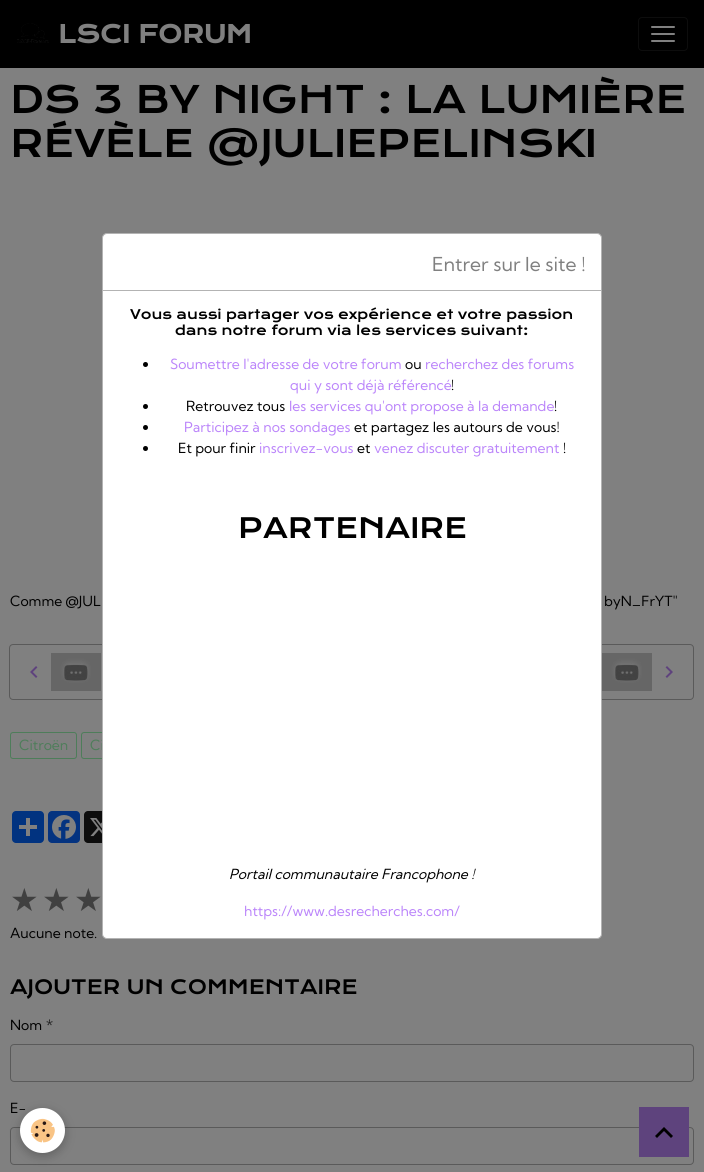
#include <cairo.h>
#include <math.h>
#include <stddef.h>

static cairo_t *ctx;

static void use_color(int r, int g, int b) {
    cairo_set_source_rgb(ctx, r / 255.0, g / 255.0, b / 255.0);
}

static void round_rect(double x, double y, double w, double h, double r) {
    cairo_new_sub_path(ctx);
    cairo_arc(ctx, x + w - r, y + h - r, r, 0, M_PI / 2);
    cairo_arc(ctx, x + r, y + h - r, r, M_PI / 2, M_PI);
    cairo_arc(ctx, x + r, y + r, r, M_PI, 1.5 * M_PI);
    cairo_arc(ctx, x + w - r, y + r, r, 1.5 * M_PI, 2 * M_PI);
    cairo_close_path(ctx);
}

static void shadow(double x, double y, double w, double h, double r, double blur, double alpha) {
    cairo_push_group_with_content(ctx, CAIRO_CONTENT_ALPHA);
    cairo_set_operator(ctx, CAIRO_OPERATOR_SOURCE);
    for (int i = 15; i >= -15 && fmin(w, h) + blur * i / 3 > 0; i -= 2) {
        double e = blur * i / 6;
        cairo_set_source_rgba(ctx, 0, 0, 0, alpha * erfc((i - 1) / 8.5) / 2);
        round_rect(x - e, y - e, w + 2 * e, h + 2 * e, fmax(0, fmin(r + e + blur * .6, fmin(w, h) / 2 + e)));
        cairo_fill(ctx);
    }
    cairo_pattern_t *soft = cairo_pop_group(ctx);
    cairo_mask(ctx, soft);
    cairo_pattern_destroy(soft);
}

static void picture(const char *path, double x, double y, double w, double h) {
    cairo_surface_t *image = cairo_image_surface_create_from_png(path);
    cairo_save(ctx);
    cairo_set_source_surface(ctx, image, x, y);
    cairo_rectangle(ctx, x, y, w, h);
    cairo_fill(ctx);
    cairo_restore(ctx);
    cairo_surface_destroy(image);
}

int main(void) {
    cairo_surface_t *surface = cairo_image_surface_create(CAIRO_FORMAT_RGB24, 704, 1172);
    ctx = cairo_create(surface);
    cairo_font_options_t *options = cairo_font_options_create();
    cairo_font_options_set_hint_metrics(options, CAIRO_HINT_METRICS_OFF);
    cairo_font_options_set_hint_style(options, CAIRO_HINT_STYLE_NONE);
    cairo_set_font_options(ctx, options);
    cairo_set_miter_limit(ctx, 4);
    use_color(128, 128, 128);
    cairo_paint(ctx);
    use_color(0, 0, 0);
    cairo_rectangle(ctx, 0, 0, 704, 68);
    cairo_fill(ctx);
    picture("img1.png", 17, 23, 32, 20);
    cairo_select_font_face(ctx, "Krona One", CAIRO_FONT_SLANT_NORMAL, CAIRO_FONT_WEIGHT_BOLD);
    cairo_set_font_size(ctx, 24);
    use_color(128, 128, 128);
    cairo_move_to(ctx, 58, 43);
    cairo_show_text(ctx, "LSCI FORUM");
    round_rect(638.5, 17.5, 49, 33, 3.5);
    use_color(13, 13, 13);
    cairo_set_line_width(ctx, 1);
    cairo_stroke(ctx);
    use_color(128, 128, 128);
    round_rect(651, 26, 24, 2, 1);
    cairo_fill(ctx);
    round_rect(651, 33, 24, 2, 1);
    cairo_fill(ctx);
    round_rect(651, 40, 24, 2, 1);
    cairo_fill(ctx);
    cairo_select_font_face(ctx, "Krona One", CAIRO_FONT_SLANT_NORMAL, CAIRO_FONT_WEIGHT_NORMAL);
    cairo_set_font_size(ctx, 36.75);
    use_color(0, 0, 0);
    cairo_move_to(ctx, 10, 113);
    cairo_show_text(ctx, "DS 3 BY NIGHT : LA LUMIÈRE");
    cairo_move_to(ctx, 10, 157);
    cairo_show_text(ctx, "RÉVÈLE @JULIEPELINSKI");
    cairo_select_font_face(ctx, "Kumbh Sans", CAIRO_FONT_SLANT_NORMAL, CAIRO_FONT_WEIGHT_NORMAL);
    cairo_set_font_size(ctx, 14);
    cairo_move_to(ctx, 10, 606);
    cairo_show_text(ctx, "Comme @JUL");
    cairo_move_to(ctx, 604, 606);
    cairo_show_text(ctx, "byN_FrYT\"");
    round_rect(9.5, 644.5, 104, 55, 3.5);
    use_color(90, 90, 90);
    cairo_stroke(ctx);
    picture("img2.png", 30, 666, 8, 12);
    picture("img3.png", 51, 653, 50, 38);
    round_rect(589.5, 644.5, 104, 55, 3.5);
    cairo_stroke(ctx);
    picture("img4.png", 602, 653, 50, 38);
    picture("img5.png", 665, 666, 8, 12);
    round_rect(10.5, 732.5, 66, 26, 2.5);
    use_color(78, 125, 90);
    cairo_stroke(ctx);
    cairo_move_to(ctx, 19, 750);
    cairo_show_text(ctx, "Citroën");
    round_rect(81.5, 732.5, 114, 26, 2.5);
    cairo_stroke(ctx);
    cairo_move_to(ctx, 90, 750);
    cairo_show_text(ctx, "Ci");
    use_color(1, 51, 128);
    round_rect(12, 811, 32, 32, 4);
    cairo_fill(ctx);
    use_color(128, 128, 128);
    cairo_rectangle(ctx, 26, 818, 4, 18);
    cairo_fill(ctx);
    cairo_rectangle(ctx, 19, 825, 18, 4);
    cairo_fill(ctx);
    use_color(4, 51, 128);
    round_rect(48, 811, 32, 32, 4);
    cairo_fill(ctx);
    picture("img6.png", 52, 815, 24, 24);
    use_color(13, 13, 13);
    round_rect(84, 811, 32, 32, 4);
    cairo_fill(ctx);
    picture("img7.png", 90, 818, 12, 19);
    cairo_select_font_face(ctx, "DejaVu Sans", CAIRO_FONT_SLANT_NORMAL, CAIRO_FONT_WEIGHT_NORMAL);
    cairo_set_font_size(ctx, 32);
    use_color(64, 64, 64);
    cairo_move_to(ctx, 10, 911);
    cairo_show_text(ctx, "★");
    cairo_move_to(ctx, 42, 911);
    cairo_show_text(ctx, "★");
    cairo_move_to(ctx, 74, 911);
    cairo_show_text(ctx, "★");
    cairo_select_font_face(ctx, "Kumbh Sans", CAIRO_FONT_SLANT_NORMAL, CAIRO_FONT_WEIGHT_NORMAL);
    cairo_set_font_size(ctx, 14);
    use_color(0, 0, 0);
    cairo_move_to(ctx, 10, 938);
    cairo_show_text(ctx, "Aucune note.");
    cairo_select_font_face(ctx, "Krona One", CAIRO_FONT_SLANT_NORMAL, CAIRO_FONT_WEIGHT_NORMAL);
    cairo_set_font_size(ctx, 19.25);
    cairo_move_to(ctx, 10, 994);
    cairo_show_text(ctx, "AJOUTER UN COMMENTAIRE");
    cairo_select_font_face(ctx, "Kumbh Sans", CAIRO_FONT_SLANT_NORMAL, CAIRO_FONT_WEIGHT_NORMAL);
    cairo_set_font_size(ctx, 14);
    cairo_move_to(ctx, 10, 1030);
    cairo_show_text(ctx, "Nom");
    use_color(26, 26, 26);
    cairo_move_to(ctx, 46, 1030);
    cairo_show_text(ctx, "*");
    round_rect(10.5, 1044.5, 683, 37, 3.5);
    use_color(90, 90, 90);
    cairo_stroke(ctx);
    use_color(0, 0, 0);
    cairo_move_to(ctx, 10, 1113);
    cairo_show_text(ctx, "E-");
    round_rect(10.5, 1127.5, 683, 37, 3.5);
    use_color(90, 90, 90);
    cairo_stroke(ctx);
    use_color(255, 255, 255);
    round_rect(102.5, 233.5, 499, 705, 4.5);
    cairo_fill_preserve(ctx);
    use_color(179, 179, 179);
    cairo_stroke(ctx);
    cairo_rectangle(ctx, 103, 290, 498, 1);
    cairo_fill(ctx);
    cairo_set_font_size(ctx, 19.25);
    use_color(128, 128, 128);
    cairo_move_to(ctx, 432, 271);
    cairo_show_text(ctx, "Entrer sur le site !");
    cairo_select_font_face(ctx, "Krona One", CAIRO_FONT_SLANT_NORMAL, CAIRO_FONT_WEIGHT_NORMAL);
    cairo_set_font_size(ctx, 12.95);
    use_color(0, 0, 0);
    cairo_move_to(ctx, 130, 319);
    cairo_show_text(ctx, "Vous aussi partager vos expérience et votre passion");
    cairo_move_to(ctx, 175, 335);
    cairo_show_text(ctx, "dans notre forum via les services suivant:");
    cairo_new_path(ctx);
    cairo_arc(ctx, 145.5, 364.5, 2.5, 0, 2 * M_PI);
    cairo_fill(ctx);
    cairo_select_font_face(ctx, "Kumbh Sans", CAIRO_FONT_SLANT_NORMAL, CAIRO_FONT_WEIGHT_NORMAL);
    cairo_set_font_size(ctx, 14);
    use_color(187, 133, 250);
    cairo_move_to(ctx, 170, 369);
    cairo_show_text(ctx, "Soumettre l'adresse de votre forum");
    use_color(0, 0, 0);
    cairo_move_to(ctx, 405, 369);
    cairo_show_text(ctx, "ou");
    use_color(187, 133, 250);
    cairo_move_to(ctx, 425, 369);
    cairo_show_text(ctx, "recherchez des forums");
    cairo_move_to(ctx, 290, 390);
    cairo_show_text(ctx, "qui y sont déjà référencé");
    use_color(0, 0, 0);
    cairo_move_to(ctx, 451, 390);
    cairo_show_text(ctx, "!");
    cairo_new_path(ctx);
    cairo_arc(ctx, 145.5, 406.5, 2.5, 0, 2 * M_PI);
    cairo_fill(ctx);
    cairo_move_to(ctx, 186, 411);
    cairo_show_text(ctx, "Retrouvez tous");
    use_color(187, 133, 250);
    cairo_move_to(ctx, 289, 411);
    cairo_show_text(ctx, "les services qu'ont propose à la demande");
    use_color(0, 0, 0);
    cairo_move_to(ctx, 554, 411);
    cairo_show_text(ctx, "!");
    cairo_new_path(ctx);
    cairo_arc(ctx, 145.5, 427.5, 2.5, 0, 2 * M_PI);
    cairo_fill(ctx);
    use_color(187, 133, 250);
    cairo_move_to(ctx, 184, 432);
    cairo_show_text(ctx, "Participez à nos sondages");
    use_color(0, 0, 0);
    cairo_move_to(ctx, 354, 432);
    cairo_show_text(ctx, "et partagez les autours de vous!");
    cairo_new_path(ctx);
    cairo_arc(ctx, 145.5, 448.5, 2.5, 0, 2 * M_PI);
    cairo_fill(ctx);
    cairo_move_to(ctx, 178, 453);
    cairo_show_text(ctx, "Et pour finir");
    use_color(187, 133, 250);
    cairo_move_to(ctx, 259, 453);
    cairo_show_text(ctx, "inscrivez-vous");
    use_color(0, 0, 0);
    cairo_move_to(ctx, 357, 453);
    cairo_show_text(ctx, "et");
    use_color(187, 133, 250);
    cairo_move_to(ctx, 374, 453);
    cairo_show_text(ctx, "venez discuter gratuitement");
    use_color(0, 0, 0);
    cairo_move_to(ctx, 563, 453);
    cairo_show_text(ctx, "!");
    cairo_select_font_face(ctx, "Krona One", CAIRO_FONT_SLANT_NORMAL, CAIRO_FONT_WEIGHT_NORMAL);
    cairo_set_font_size(ctx, 27.25);
    cairo_move_to(ctx, 238, 538);
    cairo_show_text(ctx, "PARTENAIRE");
    cairo_select_font_face(ctx, "Kumbh Sans", CAIRO_FONT_SLANT_ITALIC, CAIRO_FONT_WEIGHT_NORMAL);
    cairo_set_font_size(ctx, 14);
    cairo_move_to(ctx, 229, 879);
    cairo_show_text(ctx, "Portail communautaire Francophone !");
    cairo_select_font_face(ctx, "Kumbh Sans", CAIRO_FONT_SLANT_NORMAL, CAIRO_FONT_WEIGHT_NORMAL);
    use_color(187, 133, 250);
    cairo_move_to(ctx, 244, 916);
    cairo_show_text(ctx, "https://www.desrecherches.com/");
    use_color(0, 0, 0);
    shadow(20, 1111, 45, 45, 22.5, 5, 0.24);
    use_color(255, 255, 255);
    cairo_arc(ctx, 42.5, 1130.5, 22.5, 0, 2 * M_PI);
    cairo_fill(ctx);
    picture("img8.png", 30, 1118, 25, 25);
    use_color(94, 67, 125);
    cairo_rectangle(ctx, 639, 1107, 50, 50);
    cairo_fill(ctx);
    use_color(0, 0, 0);
    cairo_new_path(ctx);
    cairo_move_to(ctx, 664, 1127);
    cairo_line_to(ctx, 673, 1136);
    cairo_line_to(ctx, 671, 1138);
    cairo_line_to(ctx, 664, 1131);
    cairo_line_to(ctx, 657, 1138);
    cairo_line_to(ctx, 655, 1136);
    cairo_close_path(ctx);
    cairo_fill(ctx);
    cairo_surface_write_to_png(surface, "result.png");
    cairo_font_options_destroy(options);
    cairo_destroy(ctx);
    cairo_surface_destroy(surface);
    return 0;
}
